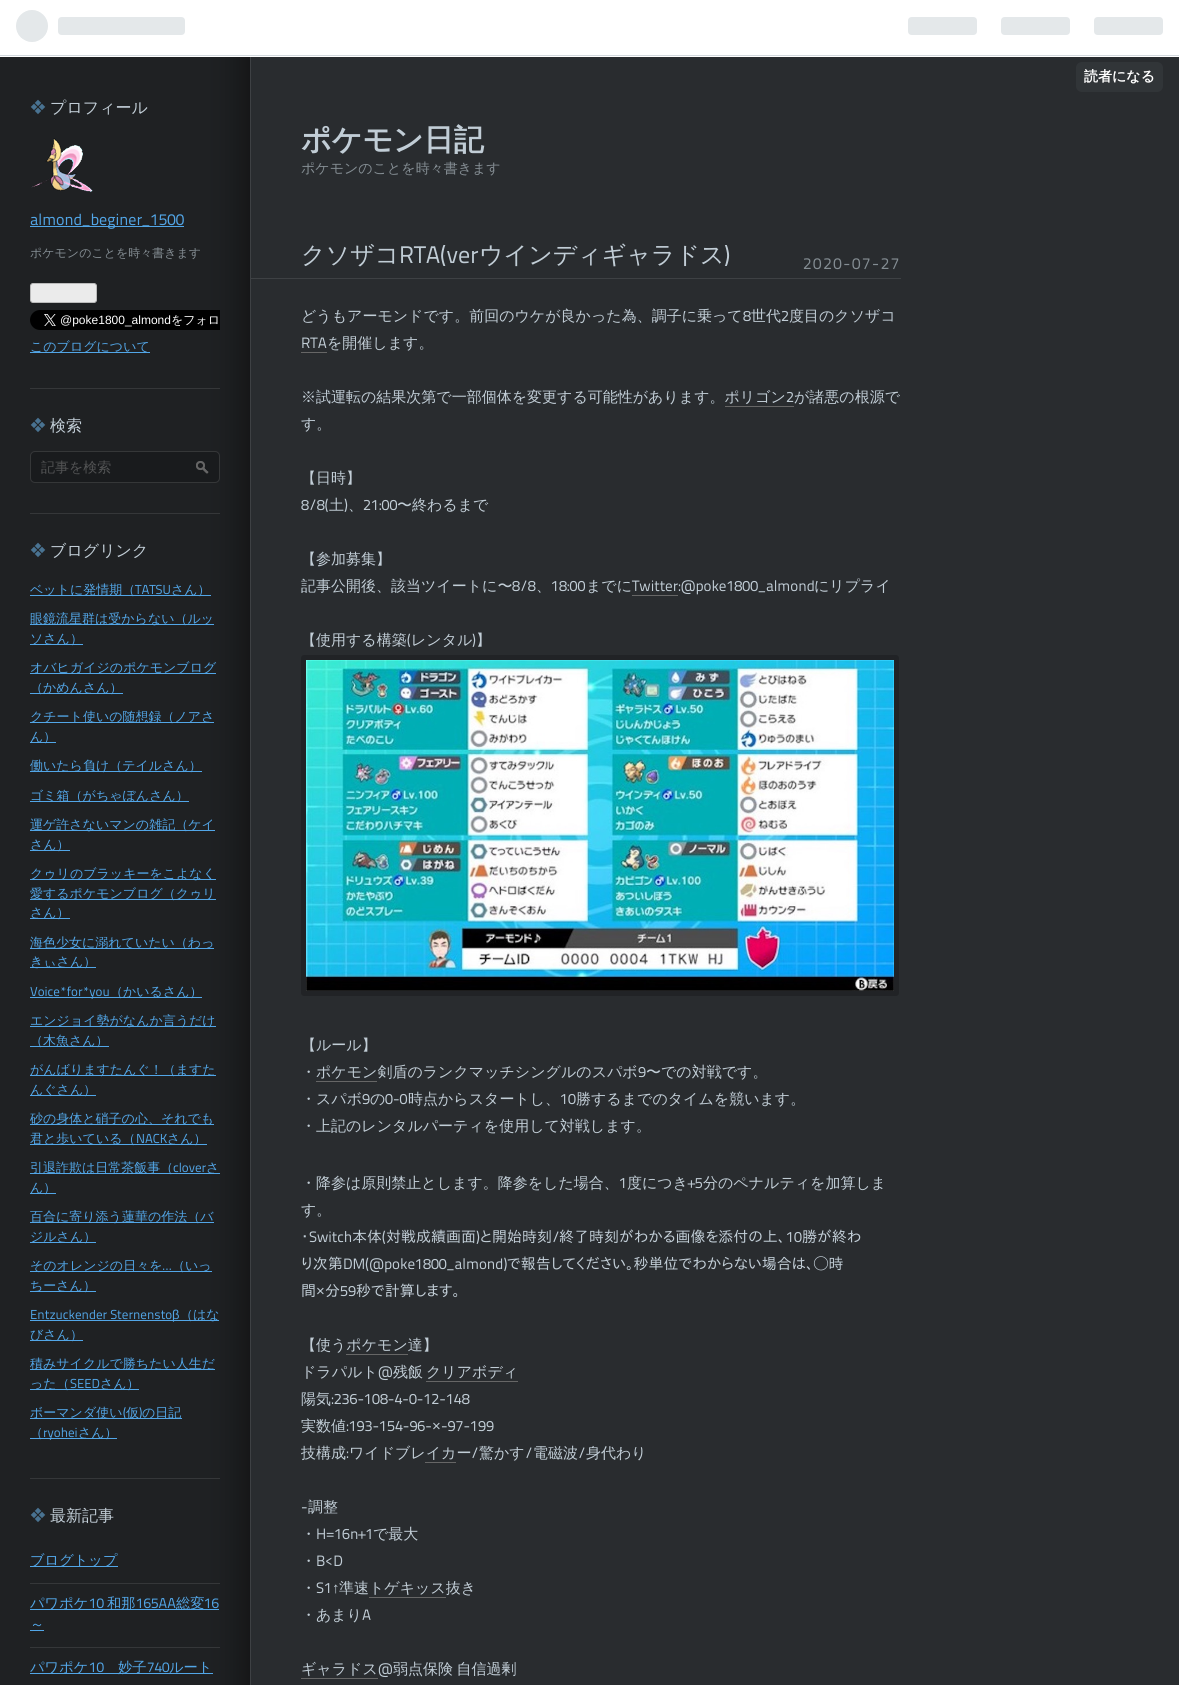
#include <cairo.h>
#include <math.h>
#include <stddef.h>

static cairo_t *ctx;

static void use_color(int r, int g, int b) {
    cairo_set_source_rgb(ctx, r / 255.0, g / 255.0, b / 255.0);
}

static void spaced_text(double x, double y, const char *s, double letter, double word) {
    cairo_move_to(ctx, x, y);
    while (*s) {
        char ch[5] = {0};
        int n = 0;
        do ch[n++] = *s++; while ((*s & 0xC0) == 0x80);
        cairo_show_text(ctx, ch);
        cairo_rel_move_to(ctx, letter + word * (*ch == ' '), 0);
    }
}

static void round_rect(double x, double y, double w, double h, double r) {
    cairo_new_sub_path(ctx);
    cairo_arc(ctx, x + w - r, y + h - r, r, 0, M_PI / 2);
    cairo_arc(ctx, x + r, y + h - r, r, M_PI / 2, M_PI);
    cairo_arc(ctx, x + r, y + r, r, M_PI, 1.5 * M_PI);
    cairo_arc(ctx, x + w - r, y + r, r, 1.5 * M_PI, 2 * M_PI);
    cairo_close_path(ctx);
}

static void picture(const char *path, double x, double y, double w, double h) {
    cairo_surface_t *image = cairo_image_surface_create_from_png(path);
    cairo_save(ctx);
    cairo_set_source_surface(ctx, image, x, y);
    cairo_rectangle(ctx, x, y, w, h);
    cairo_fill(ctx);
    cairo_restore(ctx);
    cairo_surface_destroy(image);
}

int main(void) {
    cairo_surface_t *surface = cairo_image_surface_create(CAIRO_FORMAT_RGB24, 1179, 1685);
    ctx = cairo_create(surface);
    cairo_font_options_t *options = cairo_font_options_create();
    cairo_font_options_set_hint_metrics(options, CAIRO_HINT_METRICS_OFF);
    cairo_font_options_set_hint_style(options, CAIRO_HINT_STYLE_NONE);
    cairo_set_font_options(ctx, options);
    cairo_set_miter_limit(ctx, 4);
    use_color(41, 44, 47);
    cairo_paint(ctx);
    use_color(255, 255, 255);
    cairo_rectangle(ctx, 0, 0, 1179, 57);
    cairo_fill(ctx);
    use_color(210, 216, 221);
    cairo_rectangle(ctx, 0, 55, 1179, 1);
    cairo_fill(ctx);
    picture("img1.png", 16, 10, 169, 32);
    picture("img2.png", 908, 17, 255, 18);
    use_color(49, 53, 56);
    round_rect(1076, 62, 87, 30, 6);
    cairo_fill(ctx);
    cairo_select_font_face(ctx, "WenQuanYi Zen Hei", CAIRO_FONT_SLANT_NORMAL, CAIRO_FONT_WEIGHT_BOLD);
    cairo_set_font_size(ctx, 14);
    use_color(255, 255, 255);
    cairo_move_to(ctx, 1084, 81);
    cairo_show_text(ctx, "読者になる");
    picture("img3.png", 0, 57, 250, 1628);
    use_color(53, 55, 57);
    cairo_rectangle(ctx, 30, 388, 190, 1);
    cairo_fill(ctx);
    cairo_select_font_face(ctx, "IPAPGothic", CAIRO_FONT_SLANT_NORMAL, CAIRO_FONT_WEIGHT_NORMAL);
    cairo_set_font_size(ctx, 16);
    use_color(73, 115, 146);
    cairo_move_to(ctx, 30, 113);
    cairo_show_text(ctx, "❖");
    cairo_select_font_face(ctx, "WenQuanYi Zen Hei Medium", CAIRO_FONT_SLANT_NORMAL, CAIRO_FONT_WEIGHT_NORMAL);
    use_color(193, 205, 214);
    cairo_move_to(ctx, 50, 113);
    cairo_show_text(ctx, "プロフィール");
    picture("img4.png", 31, 138, 62, 54);
    use_color(82, 166, 231);
    cairo_rectangle(ctx, 30, 226, 154, 1);
    cairo_fill(ctx);
    cairo_select_font_face(ctx, "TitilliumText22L", CAIRO_FONT_SLANT_NORMAL, CAIRO_FONT_WEIGHT_NORMAL);
    cairo_move_to(ctx, 30, 225);
    cairo_show_text(ctx, "almond_beginer_1500");
    cairo_select_font_face(ctx, "WenQuanYi Zen Hei Medium", CAIRO_FONT_SLANT_NORMAL, CAIRO_FONT_WEIGHT_NORMAL);
    cairo_set_font_size(ctx, 12);
    use_color(132, 141, 147);
    cairo_move_to(ctx, 30, 257);
    cairo_show_text(ctx, "ポケモンのことを時々書きます");
    use_color(235, 235, 235);
    round_rect(30.5, 283.5, 66, 19, 2.5);
    cairo_fill_preserve(ctx);
    use_color(187, 187, 187);
    cairo_set_line_width(ctx, 1);
    cairo_stroke(ctx);
    use_color(0, 0, 0);
    cairo_new_path(ctx);
    cairo_move_to(ctx, 40, 310);
    cairo_line_to(ctx, 220, 310);
    cairo_line_to(ctx, 220, 330);
    cairo_line_to(ctx, 40, 330);
    cairo_curve_to(ctx, 34.5, 330, 30, 325.5, 30, 320);
    cairo_curve_to(ctx, 30, 314.5, 34.5, 310, 40, 310);
    cairo_close_path(ctx);
    cairo_fill(ctx);
    picture("img5.png", 44, 314, 12, 12);
    cairo_select_font_face(ctx, "Liberation Sans", CAIRO_FONT_SLANT_NORMAL, CAIRO_FONT_WEIGHT_NORMAL);
    use_color(255, 255, 255);
    cairo_move_to(ctx, 60, 324);
    cairo_show_text(ctx, "@poke1800_almond");
    cairo_select_font_face(ctx, "WenQuanYi Zen Hei Medium", CAIRO_FONT_SLANT_NORMAL, CAIRO_FONT_WEIGHT_NORMAL);
    cairo_move_to(ctx, 171, 324);
    cairo_show_text(ctx, "をフォロ");
    use_color(82, 166, 231);
    cairo_rectangle(ctx, 30, 352, 120, 1);
    cairo_fill(ctx);
    cairo_set_font_size(ctx, 13);
    cairo_move_to(ctx, 30, 351);
    cairo_show_text(ctx, "このブログについて");
    use_color(53, 55, 57);
    cairo_rectangle(ctx, 30, 513, 190, 1);
    cairo_fill(ctx);
    cairo_select_font_face(ctx, "IPAPGothic", CAIRO_FONT_SLANT_NORMAL, CAIRO_FONT_WEIGHT_NORMAL);
    cairo_set_font_size(ctx, 16);
    use_color(73, 115, 146);
    cairo_move_to(ctx, 30, 431);
    cairo_show_text(ctx, "❖");
    cairo_select_font_face(ctx, "WenQuanYi Zen Hei Medium", CAIRO_FONT_SLANT_NORMAL, CAIRO_FONT_WEIGHT_NORMAL);
    use_color(193, 205, 214);
    cairo_move_to(ctx, 50, 431);
    cairo_show_text(ctx, "検索");
    use_color(25, 27, 29);
    round_rect(30, 451, 190, 32, 5);
    cairo_fill(ctx);
    round_rect(30.5, 451.5, 189, 31, 4.5);
    cairo_set_source_rgba(ctx, 0.647, 0.651, 0.655, 0.2);
    cairo_stroke(ctx);
    cairo_set_font_size(ctx, 14);
    use_color(82, 83, 84);
    cairo_move_to(ctx, 41, 472);
    cairo_show_text(ctx, "記事を検索");
    picture("img6.png", 196, 461, 13, 13);
    use_color(53, 55, 57);
    cairo_rectangle(ctx, 30, 1478, 190, 1);
    cairo_fill(ctx);
    cairo_select_font_face(ctx, "IPAPGothic", CAIRO_FONT_SLANT_NORMAL, CAIRO_FONT_WEIGHT_NORMAL);
    cairo_set_font_size(ctx, 16);
    use_color(73, 115, 146);
    cairo_move_to(ctx, 30, 556);
    cairo_show_text(ctx, "❖");
    cairo_select_font_face(ctx, "WenQuanYi Zen Hei Medium", CAIRO_FONT_SLANT_NORMAL, CAIRO_FONT_WEIGHT_NORMAL);
    use_color(193, 205, 214);
    cairo_move_to(ctx, 50, 556);
    cairo_show_text(ctx, "ブログリンク");
    use_color(82, 166, 231);
    cairo_rectangle(ctx, 30, 595, 181, 1);
    cairo_fill(ctx);
    cairo_set_font_size(ctx, 13);
    cairo_move_to(ctx, 30, 594);
    cairo_show_text(ctx, "ベットに発情期（");
    cairo_select_font_face(ctx, "TitilliumText22L", CAIRO_FONT_SLANT_NORMAL, CAIRO_FONT_WEIGHT_NORMAL);
    cairo_move_to(ctx, 135, 594);
    cairo_show_text(ctx, "TATSU");
    cairo_select_font_face(ctx, "WenQuanYi Zen Hei Medium", CAIRO_FONT_SLANT_NORMAL, CAIRO_FONT_WEIGHT_NORMAL);
    cairo_move_to(ctx, 171, 594);
    cairo_show_text(ctx, "さん）");
    cairo_rectangle(ctx, 30, 624, 184, 1);
    cairo_fill(ctx);
    cairo_move_to(ctx, 30, 623);
    cairo_show_text(ctx, "眼鏡流星群は受からない（ルッ");
    cairo_rectangle(ctx, 30, 644, 53, 1);
    cairo_fill(ctx);
    cairo_move_to(ctx, 30, 643);
    cairo_show_text(ctx, "ソさん）");
    cairo_rectangle(ctx, 30, 673, 186, 1);
    cairo_fill(ctx);
    cairo_move_to(ctx, 30, 672);
    cairo_show_text(ctx, "オバヒガイジのポケモンブログ");
    cairo_rectangle(ctx, 30, 693, 93, 1);
    cairo_fill(ctx);
    cairo_move_to(ctx, 30, 692);
    cairo_show_text(ctx, "（かめんさん）");
    cairo_rectangle(ctx, 30, 722, 184, 1);
    cairo_fill(ctx);
    cairo_move_to(ctx, 30, 721);
    cairo_show_text(ctx, "クチート使いの随想録（ノアさ");
    cairo_rectangle(ctx, 30, 742, 26, 1);
    cairo_fill(ctx);
    cairo_move_to(ctx, 30, 741);
    cairo_show_text(ctx, "ん）");
    cairo_rectangle(ctx, 30, 771, 172, 1);
    cairo_fill(ctx);
    cairo_move_to(ctx, 30, 770);
    cairo_show_text(ctx, "働いたら負け（テイルさん）");
    cairo_rectangle(ctx, 30, 801, 159, 1);
    cairo_fill(ctx);
    cairo_move_to(ctx, 30, 800);
    cairo_show_text(ctx, "ゴミ箱（がちゃぼんさん）");
    cairo_rectangle(ctx, 30, 830, 185, 1);
    cairo_fill(ctx);
    cairo_move_to(ctx, 30, 829);
    cairo_show_text(ctx, "運ゲ許さないマンの雑記（ケイ");
    cairo_rectangle(ctx, 30, 850, 40, 1);
    cairo_fill(ctx);
    cairo_move_to(ctx, 30, 849);
    cairo_show_text(ctx, "さん）");
    cairo_rectangle(ctx, 30, 879, 186, 1);
    cairo_fill(ctx);
    cairo_move_to(ctx, 30, 878);
    cairo_show_text(ctx, "クゥリのブラッキーをこよなく");
    cairo_rectangle(ctx, 30, 899, 186, 1);
    cairo_fill(ctx);
    cairo_move_to(ctx, 30, 898);
    cairo_show_text(ctx, "愛するポケモンブログ（クゥリ");
    cairo_rectangle(ctx, 30, 918, 40, 1);
    cairo_fill(ctx);
    cairo_move_to(ctx, 30, 917);
    cairo_show_text(ctx, "さん）");
    cairo_rectangle(ctx, 30, 948, 184, 1);
    cairo_fill(ctx);
    cairo_move_to(ctx, 30, 947);
    cairo_show_text(ctx, "海色少女に溺れていたい（わっ");
    cairo_rectangle(ctx, 30, 967, 66, 1);
    cairo_fill(ctx);
    cairo_move_to(ctx, 30, 966);
    cairo_show_text(ctx, "きぃさん）");
    cairo_rectangle(ctx, 30, 997, 172, 1);
    cairo_fill(ctx);
    cairo_select_font_face(ctx, "TitilliumText22L", CAIRO_FONT_SLANT_NORMAL, CAIRO_FONT_WEIGHT_NORMAL);
    cairo_move_to(ctx, 30, 996);
    cairo_show_text(ctx, "Voice*for*you");
    cairo_select_font_face(ctx, "WenQuanYi Zen Hei Medium", CAIRO_FONT_SLANT_NORMAL, CAIRO_FONT_WEIGHT_NORMAL);
    cairo_move_to(ctx, 110, 996);
    cairo_show_text(ctx, "（かいるさん）");
    cairo_rectangle(ctx, 30, 1026, 186, 1);
    cairo_fill(ctx);
    cairo_move_to(ctx, 30, 1025);
    cairo_show_text(ctx, "エンジョイ勢がなんか言うだけ");
    cairo_rectangle(ctx, 30, 1046, 79, 1);
    cairo_fill(ctx);
    cairo_move_to(ctx, 30, 1045);
    cairo_show_text(ctx, "（木魚さん）");
    cairo_rectangle(ctx, 30, 1075, 186, 1);
    cairo_fill(ctx);
    cairo_move_to(ctx, 30, 1074);
    cairo_show_text(ctx, "がんばりますたんぐ！（ますた");
    cairo_rectangle(ctx, 30, 1095, 66, 1);
    cairo_fill(ctx);
    cairo_move_to(ctx, 30, 1094);
    cairo_show_text(ctx, "んぐさん）");
    cairo_rectangle(ctx, 30, 1124, 184, 1);
    cairo_fill(ctx);
    cairo_move_to(ctx, 30, 1123);
    cairo_show_text(ctx, "砂の身体と硝子の心、それでも");
    cairo_rectangle(ctx, 30, 1144, 177, 1);
    cairo_fill(ctx);
    cairo_move_to(ctx, 30, 1143);
    cairo_show_text(ctx, "君と歩いている（");
    cairo_select_font_face(ctx, "TitilliumText22L", CAIRO_FONT_SLANT_NORMAL, CAIRO_FONT_WEIGHT_NORMAL);
    cairo_move_to(ctx, 136, 1143);
    cairo_show_text(ctx, "NACK");
    cairo_select_font_face(ctx, "WenQuanYi Zen Hei Medium", CAIRO_FONT_SLANT_NORMAL, CAIRO_FONT_WEIGHT_NORMAL);
    cairo_move_to(ctx, 167, 1143);
    cairo_show_text(ctx, "さん）");
    cairo_rectangle(ctx, 30, 1173, 190, 1);
    cairo_fill(ctx);
    cairo_move_to(ctx, 30, 1172);
    cairo_show_text(ctx, "引退詐欺は日常茶飯事（");
    cairo_select_font_face(ctx, "TitilliumText22L", CAIRO_FONT_SLANT_NORMAL, CAIRO_FONT_WEIGHT_NORMAL);
    cairo_move_to(ctx, 173, 1172);
    cairo_show_text(ctx, "clover");
    cairo_select_font_face(ctx, "WenQuanYi Zen Hei Medium", CAIRO_FONT_SLANT_NORMAL, CAIRO_FONT_WEIGHT_NORMAL);
    cairo_move_to(ctx, 206, 1172);
    cairo_show_text(ctx, "さ");
    cairo_rectangle(ctx, 30, 1193, 26, 1);
    cairo_fill(ctx);
    cairo_move_to(ctx, 30, 1192);
    cairo_show_text(ctx, "ん）");
    cairo_rectangle(ctx, 30, 1222, 184, 1);
    cairo_fill(ctx);
    cairo_move_to(ctx, 30, 1221);
    cairo_show_text(ctx, "百合に寄り添う蓮華の作法（バ");
    cairo_rectangle(ctx, 30, 1242, 66, 1);
    cairo_fill(ctx);
    cairo_move_to(ctx, 30, 1241);
    cairo_show_text(ctx, "ジルさん）");
    cairo_rectangle(ctx, 30, 1271, 182, 1);
    cairo_fill(ctx);
    cairo_move_to(ctx, 30, 1270);
    cairo_show_text(ctx, "そのオレンジの日々を");
    cairo_select_font_face(ctx, "TitilliumText22L", CAIRO_FONT_SLANT_NORMAL, CAIRO_FONT_WEIGHT_NORMAL);
    cairo_move_to(ctx, 162, 1270);
    cairo_show_text(ctx, "…");
    cairo_select_font_face(ctx, "WenQuanYi Zen Hei Medium", CAIRO_FONT_SLANT_NORMAL, CAIRO_FONT_WEIGHT_NORMAL);
    cairo_move_to(ctx, 172, 1270);
    cairo_show_text(ctx, "（いっ");
    cairo_rectangle(ctx, 30, 1291, 66, 1);
    cairo_fill(ctx);
    cairo_move_to(ctx, 30, 1290);
    cairo_show_text(ctx, "ちーさん）");
    cairo_select_font_face(ctx, "TitilliumText22L", CAIRO_FONT_SLANT_NORMAL, CAIRO_FONT_WEIGHT_NORMAL);
    cairo_move_to(ctx, 30, 1319);
    cairo_show_text(ctx, "Entzuckender Sternensto");
    cairo_rectangle(ctx, 30, 1320, 189, 1);
    cairo_fill(ctx);
    cairo_select_font_face(ctx, "Liberation Sans", CAIRO_FONT_SLANT_NORMAL, CAIRO_FONT_WEIGHT_NORMAL);
    cairo_move_to(ctx, 172, 1319);
    cairo_show_text(ctx, "β");
    cairo_select_font_face(ctx, "WenQuanYi Zen Hei Medium", CAIRO_FONT_SLANT_NORMAL, CAIRO_FONT_WEIGHT_NORMAL);
    cairo_move_to(ctx, 180, 1319);
    cairo_show_text(ctx, "（はな");
    cairo_rectangle(ctx, 30, 1340, 53, 1);
    cairo_fill(ctx);
    cairo_move_to(ctx, 30, 1339);
    cairo_show_text(ctx, "びさん）");
    cairo_rectangle(ctx, 30, 1369, 185, 1);
    cairo_fill(ctx);
    cairo_move_to(ctx, 30, 1368);
    cairo_show_text(ctx, "積みサイクルで勝ちたい人生だ");
    cairo_rectangle(ctx, 30, 1389, 109, 1);
    cairo_fill(ctx);
    cairo_move_to(ctx, 30, 1388);
    cairo_show_text(ctx, "った（");
    cairo_select_font_face(ctx, "TitilliumText22L", CAIRO_FONT_SLANT_NORMAL, CAIRO_FONT_WEIGHT_NORMAL);
    cairo_move_to(ctx, 70, 1388);
    cairo_show_text(ctx, "SEED");
    cairo_select_font_face(ctx, "WenQuanYi Zen Hei Medium", CAIRO_FONT_SLANT_NORMAL, CAIRO_FONT_WEIGHT_NORMAL);
    cairo_move_to(ctx, 100, 1388);
    cairo_show_text(ctx, "さん）");
    cairo_rectangle(ctx, 30, 1418, 152, 1);
    cairo_fill(ctx);
    cairo_move_to(ctx, 30, 1417);
    cairo_show_text(ctx, "ボーマンダ使い");
    cairo_select_font_face(ctx, "TitilliumText22L", CAIRO_FONT_SLANT_NORMAL, CAIRO_FONT_WEIGHT_NORMAL);
    cairo_move_to(ctx, 123, 1417);
    cairo_show_text(ctx, "(");
    cairo_select_font_face(ctx, "WenQuanYi Zen Hei Medium", CAIRO_FONT_SLANT_NORMAL, CAIRO_FONT_WEIGHT_NORMAL);
    cairo_move_to(ctx, 126, 1417);
    cairo_show_text(ctx, "仮");
    cairo_select_font_face(ctx, "TitilliumText22L", CAIRO_FONT_SLANT_NORMAL, CAIRO_FONT_WEIGHT_NORMAL);
    cairo_move_to(ctx, 139, 1417);
    cairo_show_text(ctx, ")");
    cairo_select_font_face(ctx, "WenQuanYi Zen Hei Medium", CAIRO_FONT_SLANT_NORMAL, CAIRO_FONT_WEIGHT_NORMAL);
    cairo_move_to(ctx, 142, 1417);
    cairo_show_text(ctx, "の日記");
    cairo_rectangle(ctx, 30, 1438, 87, 1);
    cairo_fill(ctx);
    cairo_move_to(ctx, 30, 1437);
    cairo_show_text(ctx, "（");
    cairo_select_font_face(ctx, "TitilliumText22L", CAIRO_FONT_SLANT_NORMAL, CAIRO_FONT_WEIGHT_NORMAL);
    cairo_move_to(ctx, 43, 1437);
    cairo_show_text(ctx, "ryohei");
    cairo_select_font_face(ctx, "WenQuanYi Zen Hei Medium", CAIRO_FONT_SLANT_NORMAL, CAIRO_FONT_WEIGHT_NORMAL);
    cairo_move_to(ctx, 78, 1437);
    cairo_show_text(ctx, "さん）");
    cairo_select_font_face(ctx, "IPAPGothic", CAIRO_FONT_SLANT_NORMAL, CAIRO_FONT_WEIGHT_NORMAL);
    cairo_set_font_size(ctx, 16);
    use_color(73, 115, 146);
    cairo_move_to(ctx, 30, 1521);
    cairo_show_text(ctx, "❖");
    cairo_select_font_face(ctx, "WenQuanYi Zen Hei Medium", CAIRO_FONT_SLANT_NORMAL, CAIRO_FONT_WEIGHT_NORMAL);
    use_color(193, 205, 214);
    cairo_move_to(ctx, 50, 1521);
    cairo_show_text(ctx, "最新記事");
    use_color(53, 55, 57);
    cairo_rectangle(ctx, 30, 1583, 190, 1);
    cairo_fill(ctx);
    use_color(82, 166, 231);
    cairo_rectangle(ctx, 30, 1566, 88, 1);
    cairo_fill(ctx);
    cairo_set_font_size(ctx, 14.25);
    cairo_move_to(ctx, 30, 1565);
    cairo_show_text(ctx, "ブログトップ");
    use_color(53, 55, 57);
    cairo_rectangle(ctx, 30, 1647, 190, 1);
    cairo_fill(ctx);
    use_color(82, 166, 231);
    cairo_rectangle(ctx, 30, 1609, 189, 1);
    cairo_fill(ctx);
    cairo_move_to(ctx, 30, 1608);
    cairo_show_text(ctx, "パワポケ");
    cairo_select_font_face(ctx, "TitilliumText22L", CAIRO_FONT_SLANT_NORMAL, CAIRO_FONT_WEIGHT_NORMAL);
    cairo_move_to(ctx, 89, 1608);
    cairo_show_text(ctx, "10");
    cairo_select_font_face(ctx, "WenQuanYi Zen Hei Medium", CAIRO_FONT_SLANT_NORMAL, CAIRO_FONT_WEIGHT_NORMAL);
    cairo_move_to(ctx, 107, 1608);
    cairo_show_text(ctx, "和那");
    cairo_select_font_face(ctx, "TitilliumText22L", CAIRO_FONT_SLANT_NORMAL, CAIRO_FONT_WEIGHT_NORMAL);
    cairo_move_to(ctx, 136, 1608);
    cairo_show_text(ctx, "165AA");
    cairo_select_font_face(ctx, "WenQuanYi Zen Hei Medium", CAIRO_FONT_SLANT_NORMAL, CAIRO_FONT_WEIGHT_NORMAL);
    cairo_move_to(ctx, 176, 1608);
    cairo_show_text(ctx, "総変");
    cairo_select_font_face(ctx, "TitilliumText22L", CAIRO_FONT_SLANT_NORMAL, CAIRO_FONT_WEIGHT_NORMAL);
    cairo_move_to(ctx, 204, 1608);
    cairo_show_text(ctx, "16");
    cairo_select_font_face(ctx, "WenQuanYi Zen Hei Medium", CAIRO_FONT_SLANT_NORMAL, CAIRO_FONT_WEIGHT_NORMAL);
    cairo_move_to(ctx, 30, 1629);
    cairo_show_text(ctx, "～");
    cairo_rectangle(ctx, 30, 1630, 14, 1);
    cairo_fill(ctx);
    cairo_rectangle(ctx, 30, 1673, 183, 1);
    cairo_fill(ctx);
    cairo_move_to(ctx, 30, 1672);
    cairo_show_text(ctx, "パワポケ");
    cairo_select_font_face(ctx, "TitilliumText22L", CAIRO_FONT_SLANT_NORMAL, CAIRO_FONT_WEIGHT_NORMAL);
    cairo_move_to(ctx, 89, 1672);
    cairo_show_text(ctx, "10");
    cairo_select_font_face(ctx, "WenQuanYi Zen Hei Medium", CAIRO_FONT_SLANT_NORMAL, CAIRO_FONT_WEIGHT_NORMAL);
    cairo_move_to(ctx, 118, 1672);
    cairo_show_text(ctx, "妙子");
    cairo_select_font_face(ctx, "TitilliumText22L", CAIRO_FONT_SLANT_NORMAL, CAIRO_FONT_WEIGHT_NORMAL);
    cairo_move_to(ctx, 147, 1672);
    cairo_show_text(ctx, "740");
    cairo_select_font_face(ctx, "WenQuanYi Zen Hei Medium", CAIRO_FONT_SLANT_NORMAL, CAIRO_FONT_WEIGHT_NORMAL);
    cairo_move_to(ctx, 169, 1672);
    cairo_show_text(ctx, "ルート");
    use_color(62, 65, 68);
    cairo_rectangle(ctx, 251, 278, 650, 1);
    cairo_fill(ctx);
    cairo_set_font_size(ctx, 24);
    use_color(193, 205, 214);
    cairo_move_to(ctx, 301, 263);
    cairo_show_text(ctx, "クソザコ");
    cairo_select_font_face(ctx, "TitilliumText22L", CAIRO_FONT_SLANT_NORMAL, CAIRO_FONT_WEIGHT_NORMAL);
    cairo_move_to(ctx, 399, 263);
    cairo_show_text(ctx, "RTA(ver");
    cairo_select_font_face(ctx, "WenQuanYi Zen Hei Medium", CAIRO_FONT_SLANT_NORMAL, CAIRO_FONT_WEIGHT_NORMAL);
    cairo_move_to(ctx, 479, 263);
    cairo_show_text(ctx, "ウインディギャラドス");
    cairo_select_font_face(ctx, "TitilliumText22L", CAIRO_FONT_SLANT_NORMAL, CAIRO_FONT_WEIGHT_NORMAL);
    cairo_move_to(ctx, 724, 263);
    cairo_show_text(ctx, ")");
    cairo_set_font_size(ctx, 16);
    use_color(132, 141, 147);
    spaced_text(803, 269, "2020-07-27", 1.6, 0);
    cairo_select_font_face(ctx, "WenQuanYi Zen Hei Medium", CAIRO_FONT_SLANT_NORMAL, CAIRO_FONT_WEIGHT_NORMAL);
    cairo_set_font_size(ctx, 15);
    use_color(193, 205, 214);
    cairo_move_to(ctx, 301, 321);
    cairo_show_text(ctx, "どうもアーモンドです。前回のウケが良かった為、調子に乗って");
    cairo_select_font_face(ctx, "TitilliumText22L", CAIRO_FONT_SLANT_NORMAL, CAIRO_FONT_WEIGHT_NORMAL);
    cairo_move_to(ctx, 743, 321);
    cairo_show_text(ctx, "8");
    cairo_select_font_face(ctx, "WenQuanYi Zen Hei Medium", CAIRO_FONT_SLANT_NORMAL, CAIRO_FONT_WEIGHT_NORMAL);
    cairo_move_to(ctx, 751, 321);
    cairo_show_text(ctx, "世代");
    cairo_select_font_face(ctx, "TitilliumText22L", CAIRO_FONT_SLANT_NORMAL, CAIRO_FONT_WEIGHT_NORMAL);
    cairo_move_to(ctx, 781, 321);
    cairo_show_text(ctx, "2");
    cairo_select_font_face(ctx, "WenQuanYi Zen Hei Medium", CAIRO_FONT_SLANT_NORMAL, CAIRO_FONT_WEIGHT_NORMAL);
    cairo_move_to(ctx, 789, 321);
    cairo_show_text(ctx, "度目のクソザコ");
    cairo_select_font_face(ctx, "TitilliumText22L", CAIRO_FONT_SLANT_NORMAL, CAIRO_FONT_WEIGHT_NORMAL);
    cairo_move_to(ctx, 301, 348);
    cairo_show_text(ctx, "RTA");
    use_color(102, 102, 102);
    cairo_rectangle(ctx, 301, 352, 26, 1);
    cairo_fill(ctx);
    cairo_select_font_face(ctx, "WenQuanYi Zen Hei Medium", CAIRO_FONT_SLANT_NORMAL, CAIRO_FONT_WEIGHT_NORMAL);
    use_color(193, 205, 214);
    cairo_move_to(ctx, 327, 348);
    cairo_show_text(ctx, "を開催します。");
    cairo_move_to(ctx, 301, 402);
    cairo_show_text(ctx, "※試運転の結果次第で一部個体を変更する可能性があります。ポリゴン");
    cairo_select_font_face(ctx, "TitilliumText22L", CAIRO_FONT_SLANT_NORMAL, CAIRO_FONT_WEIGHT_NORMAL);
    cairo_move_to(ctx, 786, 402);
    cairo_show_text(ctx, "2");
    use_color(102, 102, 102);
    cairo_rectangle(ctx, 725, 406, 69, 1);
    cairo_fill(ctx);
    cairo_select_font_face(ctx, "WenQuanYi Zen Hei Medium", CAIRO_FONT_SLANT_NORMAL, CAIRO_FONT_WEIGHT_NORMAL);
    use_color(193, 205, 214);
    cairo_move_to(ctx, 794, 402);
    cairo_show_text(ctx, "が諸悪の根源で");
    cairo_move_to(ctx, 301, 429);
    cairo_show_text(ctx, "す。");
    cairo_move_to(ctx, 301, 483);
    cairo_show_text(ctx, "【日時】");
    cairo_select_font_face(ctx, "TitilliumText22L", CAIRO_FONT_SLANT_NORMAL, CAIRO_FONT_WEIGHT_NORMAL);
    cairo_move_to(ctx, 301, 510);
    cairo_show_text(ctx, "8/8(");
    cairo_select_font_face(ctx, "WenQuanYi Zen Hei Medium", CAIRO_FONT_SLANT_NORMAL, CAIRO_FONT_WEIGHT_NORMAL);
    cairo_move_to(ctx, 329, 510);
    cairo_show_text(ctx, "土");
    cairo_select_font_face(ctx, "TitilliumText22L", CAIRO_FONT_SLANT_NORMAL, CAIRO_FONT_WEIGHT_NORMAL);
    cairo_move_to(ctx, 344, 510);
    cairo_show_text(ctx, ")");
    cairo_select_font_face(ctx, "WenQuanYi Zen Hei Medium", CAIRO_FONT_SLANT_NORMAL, CAIRO_FONT_WEIGHT_NORMAL);
    cairo_move_to(ctx, 348, 510);
    cairo_show_text(ctx, "、");
    cairo_select_font_face(ctx, "TitilliumText22L", CAIRO_FONT_SLANT_NORMAL, CAIRO_FONT_WEIGHT_NORMAL);
    cairo_move_to(ctx, 363, 510);
    cairo_show_text(ctx, "21:00");
    cairo_select_font_face(ctx, "WenQuanYi Zen Hei Medium", CAIRO_FONT_SLANT_NORMAL, CAIRO_FONT_WEIGHT_NORMAL);
    cairo_move_to(ctx, 397, 510);
    cairo_show_text(ctx, "〜終わるまで");
    cairo_move_to(ctx, 301, 564);
    cairo_show_text(ctx, "【参加募集】");
    cairo_move_to(ctx, 301, 591);
    cairo_show_text(ctx, "記事公開後、該当ツイートに〜");
    cairo_select_font_face(ctx, "TitilliumText22L", CAIRO_FONT_SLANT_NORMAL, CAIRO_FONT_WEIGHT_NORMAL);
    cairo_move_to(ctx, 512, 591);
    cairo_show_text(ctx, "8/8");
    cairo_select_font_face(ctx, "WenQuanYi Zen Hei Medium", CAIRO_FONT_SLANT_NORMAL, CAIRO_FONT_WEIGHT_NORMAL);
    cairo_move_to(ctx, 536, 591);
    cairo_show_text(ctx, "、");
    cairo_select_font_face(ctx, "TitilliumText22L", CAIRO_FONT_SLANT_NORMAL, CAIRO_FONT_WEIGHT_NORMAL);
    cairo_move_to(ctx, 551, 591);
    cairo_show_text(ctx, "18:00");
    cairo_select_font_face(ctx, "WenQuanYi Zen Hei Medium", CAIRO_FONT_SLANT_NORMAL, CAIRO_FONT_WEIGHT_NORMAL);
    cairo_move_to(ctx, 586, 591);
    cairo_show_text(ctx, "までに");
    cairo_select_font_face(ctx, "TitilliumText22L", CAIRO_FONT_SLANT_NORMAL, CAIRO_FONT_WEIGHT_NORMAL);
    cairo_move_to(ctx, 632, 591);
    cairo_show_text(ctx, "Twitter:@poke1800_almond");
    use_color(102, 102, 102);
    cairo_rectangle(ctx, 632, 595, 46, 1);
    cairo_fill(ctx);
    cairo_select_font_face(ctx, "WenQuanYi Zen Hei Medium", CAIRO_FONT_SLANT_NORMAL, CAIRO_FONT_WEIGHT_NORMAL);
    use_color(193, 205, 214);
    cairo_move_to(ctx, 814, 591);
    cairo_show_text(ctx, "にリプライ");
    cairo_move_to(ctx, 301, 645);
    cairo_show_text(ctx, "【使用する構築");
    cairo_select_font_face(ctx, "TitilliumText22L", CAIRO_FONT_SLANT_NORMAL, CAIRO_FONT_WEIGHT_NORMAL);
    cairo_move_to(ctx, 407, 645);
    cairo_show_text(ctx, "(");
    cairo_select_font_face(ctx, "WenQuanYi Zen Hei Medium", CAIRO_FONT_SLANT_NORMAL, CAIRO_FONT_WEIGHT_NORMAL);
    cairo_move_to(ctx, 411, 645);
    cairo_show_text(ctx, "レンタル");
    cairo_select_font_face(ctx, "TitilliumText22L", CAIRO_FONT_SLANT_NORMAL, CAIRO_FONT_WEIGHT_NORMAL);
    cairo_move_to(ctx, 472, 645);
    cairo_show_text(ctx, ")");
    cairo_select_font_face(ctx, "WenQuanYi Zen Hei Medium", CAIRO_FONT_SLANT_NORMAL, CAIRO_FONT_WEIGHT_NORMAL);
    cairo_move_to(ctx, 476, 645);
    cairo_show_text(ctx, "】");
    use_color(33, 35, 38);
    round_rect(301, 655, 598, 341, 3);
    cairo_fill(ctx);
    picture("img7.png", 306, 660, 588, 331);
    use_color(193, 205, 214);
    cairo_move_to(ctx, 301, 1050);
    cairo_show_text(ctx, "【ルール】");
    cairo_move_to(ctx, 301, 1077);
    cairo_show_text(ctx, "・ポケモン剣盾のランクマッチシングルのスパボ");
    cairo_select_font_face(ctx, "TitilliumText22L", CAIRO_FONT_SLANT_NORMAL, CAIRO_FONT_WEIGHT_NORMAL);
    cairo_move_to(ctx, 638, 1077);
    cairo_show_text(ctx, "9");
    cairo_select_font_face(ctx, "WenQuanYi Zen Hei Medium", CAIRO_FONT_SLANT_NORMAL, CAIRO_FONT_WEIGHT_NORMAL);
    cairo_move_to(ctx, 646, 1077);
    cairo_show_text(ctx, "〜での対戦です。");
    use_color(102, 102, 102);
    cairo_rectangle(ctx, 316, 1081, 61, 1);
    cairo_fill(ctx);
    use_color(193, 205, 214);
    cairo_move_to(ctx, 301, 1104);
    cairo_show_text(ctx, "・スパボ");
    cairo_select_font_face(ctx, "TitilliumText22L", CAIRO_FONT_SLANT_NORMAL, CAIRO_FONT_WEIGHT_NORMAL);
    cairo_move_to(ctx, 362, 1104);
    cairo_show_text(ctx, "9");
    cairo_select_font_face(ctx, "WenQuanYi Zen Hei Medium", CAIRO_FONT_SLANT_NORMAL, CAIRO_FONT_WEIGHT_NORMAL);
    cairo_move_to(ctx, 370, 1104);
    cairo_show_text(ctx, "の");
    cairo_select_font_face(ctx, "TitilliumText22L", CAIRO_FONT_SLANT_NORMAL, CAIRO_FONT_WEIGHT_NORMAL);
    cairo_move_to(ctx, 385, 1104);
    cairo_show_text(ctx, "0-0");
    cairo_select_font_face(ctx, "WenQuanYi Zen Hei Medium", CAIRO_FONT_SLANT_NORMAL, CAIRO_FONT_WEIGHT_NORMAL);
    cairo_move_to(ctx, 408, 1104);
    cairo_show_text(ctx, "時点からスタートし、");
    cairo_select_font_face(ctx, "TitilliumText22L", CAIRO_FONT_SLANT_NORMAL, CAIRO_FONT_WEIGHT_NORMAL);
    cairo_move_to(ctx, 560, 1104);
    cairo_show_text(ctx, "10");
    cairo_select_font_face(ctx, "WenQuanYi Zen Hei Medium", CAIRO_FONT_SLANT_NORMAL, CAIRO_FONT_WEIGHT_NORMAL);
    cairo_move_to(ctx, 576, 1104);
    cairo_show_text(ctx, "勝するまでのタイムを競います。");
    cairo_move_to(ctx, 301, 1131);
    cairo_show_text(ctx, "・上記のレンタルパーティを使用して対戦します。");
    cairo_move_to(ctx, 301, 1188);
    cairo_show_text(ctx, "・降参は原則禁止とします。降参をした場合、");
    cairo_select_font_face(ctx, "TitilliumText22L", CAIRO_FONT_SLANT_NORMAL, CAIRO_FONT_WEIGHT_NORMAL);
    cairo_move_to(ctx, 619, 1188);
    cairo_show_text(ctx, "1");
    cairo_select_font_face(ctx, "WenQuanYi Zen Hei Medium", CAIRO_FONT_SLANT_NORMAL, CAIRO_FONT_WEIGHT_NORMAL);
    cairo_move_to(ctx, 627, 1188);
    cairo_show_text(ctx, "度につき");
    cairo_select_font_face(ctx, "TitilliumText22L", CAIRO_FONT_SLANT_NORMAL, CAIRO_FONT_WEIGHT_NORMAL);
    cairo_move_to(ctx, 688, 1188);
    cairo_show_text(ctx, "+5");
    cairo_select_font_face(ctx, "WenQuanYi Zen Hei Medium", CAIRO_FONT_SLANT_NORMAL, CAIRO_FONT_WEIGHT_NORMAL);
    cairo_move_to(ctx, 703, 1188);
    cairo_show_text(ctx, "分のペナルティを加算しま");
    cairo_move_to(ctx, 301, 1215);
    cairo_show_text(ctx, "す。");
    cairo_select_font_face(ctx, "IPAPGothic", CAIRO_FONT_SLANT_NORMAL, CAIRO_FONT_WEIGHT_NORMAL);
    cairo_move_to(ctx, 352, 1242);
    cairo_show_text(ctx, "本体 対戦成績画面 と開始時刻");
    cairo_move_to(ctx, 559, 1242);
    cairo_show_text(ctx, "終了時刻がわかる画像を添付の上、");
    cairo_move_to(ctx, 802, 1242);
    cairo_show_text(ctx, "勝が終わ");
    cairo_move_to(ctx, 301, 1242);
    cairo_show_text(ctx, "・");
    cairo_select_font_face(ctx, "TitilliumText22L", CAIRO_FONT_SLANT_NORMAL, CAIRO_FONT_WEIGHT_NORMAL);
    cairo_move_to(ctx, 309, 1242);
    cairo_show_text(ctx, "Switch");
    cairo_move_to(ctx, 382, 1242);
    cairo_show_text(ctx, "(");
    cairo_move_to(ctx, 476, 1242);
    cairo_show_text(ctx, ")");
    cairo_move_to(ctx, 552, 1242);
    cairo_show_text(ctx, "/");
    cairo_move_to(ctx, 786, 1242);
    cairo_show_text(ctx, "10");
    cairo_select_font_face(ctx, "IPAPGothic", CAIRO_FONT_SLANT_NORMAL, CAIRO_FONT_WEIGHT_NORMAL);
    cairo_move_to(ctx, 301, 1269);
    cairo_show_text(ctx, "り次第");
    cairo_select_font_face(ctx, "TitilliumText22L", CAIRO_FONT_SLANT_NORMAL, CAIRO_FONT_WEIGHT_NORMAL);
    cairo_move_to(ctx, 343, 1269);
    cairo_show_text(ctx, "DM(@poke1800_almond)");
    cairo_select_font_face(ctx, "IPAPGothic", CAIRO_FONT_SLANT_NORMAL, CAIRO_FONT_WEIGHT_NORMAL);
    cairo_move_to(ctx, 507, 1269);
    cairo_show_text(ctx, "で報告してください。秒単位でわからない場合は、◯時");
    cairo_move_to(ctx, 301, 1296);
    cairo_show_text(ctx, "間");
    cairo_select_font_face(ctx, "Liberation Sans", CAIRO_FONT_SLANT_NORMAL, CAIRO_FONT_WEIGHT_NORMAL);
    cairo_move_to(ctx, 316, 1296);
    cairo_show_text(ctx, "×");
    cairo_select_font_face(ctx, "IPAPGothic", CAIRO_FONT_SLANT_NORMAL, CAIRO_FONT_WEIGHT_NORMAL);
    cairo_move_to(ctx, 325, 1296);
    cairo_show_text(ctx, "分");
    cairo_select_font_face(ctx, "TitilliumText22L", CAIRO_FONT_SLANT_NORMAL, CAIRO_FONT_WEIGHT_NORMAL);
    cairo_move_to(ctx, 340, 1296);
    cairo_show_text(ctx, "59");
    cairo_select_font_face(ctx, "IPAPGothic", CAIRO_FONT_SLANT_NORMAL, CAIRO_FONT_WEIGHT_NORMAL);
    cairo_move_to(ctx, 356, 1296);
    cairo_show_text(ctx, "秒で計算します。");
    cairo_select_font_face(ctx, "WenQuanYi Zen Hei Medium", CAIRO_FONT_SLANT_NORMAL, CAIRO_FONT_WEIGHT_NORMAL);
    cairo_move_to(ctx, 301, 1350);
    cairo_show_text(ctx, "【使うポケモン達】");
    use_color(102, 102, 102);
    cairo_rectangle(ctx, 346, 1354, 62, 1);
    cairo_fill(ctx);
    use_color(193, 205, 214);
    cairo_move_to(ctx, 301, 1377);
    cairo_show_text(ctx, "ドラパルト");
    cairo_select_font_face(ctx, "TitilliumText22L", CAIRO_FONT_SLANT_NORMAL, CAIRO_FONT_WEIGHT_NORMAL);
    cairo_move_to(ctx, 378, 1377);
    cairo_show_text(ctx, "@");
    cairo_select_font_face(ctx, "WenQuanYi Zen Hei Medium", CAIRO_FONT_SLANT_NORMAL, CAIRO_FONT_WEIGHT_NORMAL);
    cairo_move_to(ctx, 393, 1377);
    cairo_show_text(ctx, "残飯");
    cairo_move_to(ctx, 426, 1377);
    cairo_show_text(ctx, "クリアボディ");
    use_color(102, 102, 102);
    cairo_rectangle(ctx, 426, 1381, 92, 1);
    cairo_fill(ctx);
    use_color(193, 205, 214);
    cairo_move_to(ctx, 301, 1404);
    cairo_show_text(ctx, "陽気");
    cairo_select_font_face(ctx, "TitilliumText22L", CAIRO_FONT_SLANT_NORMAL, CAIRO_FONT_WEIGHT_NORMAL);
    cairo_move_to(ctx, 331, 1404);
    cairo_show_text(ctx, ":236-108-4-0-12-148");
    cairo_select_font_face(ctx, "WenQuanYi Zen Hei Medium", CAIRO_FONT_SLANT_NORMAL, CAIRO_FONT_WEIGHT_NORMAL);
    cairo_move_to(ctx, 301, 1431);
    cairo_show_text(ctx, "実数値");
    cairo_select_font_face(ctx, "TitilliumText22L", CAIRO_FONT_SLANT_NORMAL, CAIRO_FONT_WEIGHT_NORMAL);
    cairo_move_to(ctx, 346, 1431);
    cairo_show_text(ctx, ":193-154-96-");
    cairo_select_font_face(ctx, "Liberation Sans", CAIRO_FONT_SLANT_NORMAL, CAIRO_FONT_WEIGHT_NORMAL);
    cairo_move_to(ctx, 432, 1431);
    cairo_show_text(ctx, "×");
    cairo_select_font_face(ctx, "TitilliumText22L", CAIRO_FONT_SLANT_NORMAL, CAIRO_FONT_WEIGHT_NORMAL);
    cairo_move_to(ctx, 441, 1431);
    cairo_show_text(ctx, "-97-199");
    cairo_select_font_face(ctx, "WenQuanYi Zen Hei Medium", CAIRO_FONT_SLANT_NORMAL, CAIRO_FONT_WEIGHT_NORMAL);
    cairo_move_to(ctx, 301, 1458);
    cairo_show_text(ctx, "技構成");
    cairo_select_font_face(ctx, "TitilliumText22L", CAIRO_FONT_SLANT_NORMAL, CAIRO_FONT_WEIGHT_NORMAL);
    cairo_move_to(ctx, 346, 1458);
    cairo_show_text(ctx, ":");
    cairo_select_font_face(ctx, "WenQuanYi Zen Hei Medium", CAIRO_FONT_SLANT_NORMAL, CAIRO_FONT_WEIGHT_NORMAL);
    cairo_move_to(ctx, 349, 1458);
    cairo_show_text(ctx, "ワイドブレイカー");
    cairo_select_font_face(ctx, "TitilliumText22L", CAIRO_FONT_SLANT_NORMAL, CAIRO_FONT_WEIGHT_NORMAL);
    cairo_move_to(ctx, 471, 1458);
    cairo_show_text(ctx, "/");
    cairo_select_font_face(ctx, "WenQuanYi Zen Hei Medium", CAIRO_FONT_SLANT_NORMAL, CAIRO_FONT_WEIGHT_NORMAL);
    cairo_move_to(ctx, 479, 1458);
    cairo_show_text(ctx, "驚かす");
    cairo_select_font_face(ctx, "TitilliumText22L", CAIRO_FONT_SLANT_NORMAL, CAIRO_FONT_WEIGHT_NORMAL);
    cairo_move_to(ctx, 525, 1458);
    cairo_show_text(ctx, "/");
    cairo_select_font_face(ctx, "WenQuanYi Zen Hei Medium", CAIRO_FONT_SLANT_NORMAL, CAIRO_FONT_WEIGHT_NORMAL);
    cairo_move_to(ctx, 533, 1458);
    cairo_show_text(ctx, "電磁波");
    cairo_select_font_face(ctx, "TitilliumText22L", CAIRO_FONT_SLANT_NORMAL, CAIRO_FONT_WEIGHT_NORMAL);
    cairo_move_to(ctx, 578, 1458);
    cairo_show_text(ctx, "/");
    cairo_select_font_face(ctx, "WenQuanYi Zen Hei Medium", CAIRO_FONT_SLANT_NORMAL, CAIRO_FONT_WEIGHT_NORMAL);
    cairo_move_to(ctx, 586, 1458);
    cairo_show_text(ctx, "身代わり");
    use_color(102, 102, 102);
    cairo_rectangle(ctx, 425, 1462, 31, 1);
    cairo_fill(ctx);
    cairo_select_font_face(ctx, "TitilliumText22L", CAIRO_FONT_SLANT_NORMAL, CAIRO_FONT_WEIGHT_NORMAL);
    use_color(193, 205, 214);
    cairo_move_to(ctx, 301, 1512);
    cairo_show_text(ctx, "-");
    cairo_select_font_face(ctx, "WenQuanYi Zen Hei Medium", CAIRO_FONT_SLANT_NORMAL, CAIRO_FONT_WEIGHT_NORMAL);
    cairo_move_to(ctx, 308, 1512);
    cairo_show_text(ctx, "調整");
    cairo_move_to(ctx, 301, 1539);
    cairo_show_text(ctx, "・");
    cairo_select_font_face(ctx, "TitilliumText22L", CAIRO_FONT_SLANT_NORMAL, CAIRO_FONT_WEIGHT_NORMAL);
    cairo_move_to(ctx, 316, 1539);
    cairo_show_text(ctx, "H=16n+1");
    cairo_select_font_face(ctx, "WenQuanYi Zen Hei Medium", CAIRO_FONT_SLANT_NORMAL, CAIRO_FONT_WEIGHT_NORMAL);
    cairo_move_to(ctx, 373, 1539);
    cairo_show_text(ctx, "で最大");
    cairo_move_to(ctx, 301, 1566);
    cairo_show_text(ctx, "・");
    cairo_select_font_face(ctx, "TitilliumText22L", CAIRO_FONT_SLANT_NORMAL, CAIRO_FONT_WEIGHT_NORMAL);
    cairo_move_to(ctx, 316, 1566);
    cairo_show_text(ctx, "B<D");
    cairo_select_font_face(ctx, "WenQuanYi Zen Hei Medium", CAIRO_FONT_SLANT_NORMAL, CAIRO_FONT_WEIGHT_NORMAL);
    cairo_move_to(ctx, 301, 1593);
    cairo_show_text(ctx, "・");
    cairo_select_font_face(ctx, "TitilliumText22L", CAIRO_FONT_SLANT_NORMAL, CAIRO_FONT_WEIGHT_NORMAL);
    cairo_move_to(ctx, 316, 1593);
    cairo_show_text(ctx, "S1");
    cairo_select_font_face(ctx, "Liberation Sans", CAIRO_FONT_SLANT_NORMAL, CAIRO_FONT_WEIGHT_NORMAL);
    cairo_move_to(ctx, 332, 1593);
    cairo_show_text(ctx, "↑");
    cairo_select_font_face(ctx, "WenQuanYi Zen Hei Medium", CAIRO_FONT_SLANT_NORMAL, CAIRO_FONT_WEIGHT_NORMAL);
    cairo_move_to(ctx, 339, 1593);
    cairo_show_text(ctx, "準速トゲキッス抜き");
    use_color(102, 102, 102);
    cairo_rectangle(ctx, 369, 1597, 77, 1);
    cairo_fill(ctx);
    use_color(193, 205, 214);
    cairo_move_to(ctx, 301, 1620);
    cairo_show_text(ctx, "・あまり");
    cairo_select_font_face(ctx, "TitilliumText22L", CAIRO_FONT_SLANT_NORMAL, CAIRO_FONT_WEIGHT_NORMAL);
    cairo_move_to(ctx, 362, 1620);
    cairo_show_text(ctx, "A");
    cairo_select_font_face(ctx, "WenQuanYi Zen Hei Medium", CAIRO_FONT_SLANT_NORMAL, CAIRO_FONT_WEIGHT_NORMAL);
    cairo_move_to(ctx, 301, 1674);
    cairo_show_text(ctx, "ギャラドス");
    use_color(102, 102, 102);
    cairo_rectangle(ctx, 301, 1678, 77, 1);
    cairo_fill(ctx);
    cairo_select_font_face(ctx, "TitilliumText22L", CAIRO_FONT_SLANT_NORMAL, CAIRO_FONT_WEIGHT_NORMAL);
    use_color(193, 205, 214);
    cairo_move_to(ctx, 378, 1674);
    cairo_show_text(ctx, "@");
    cairo_select_font_face(ctx, "WenQuanYi Zen Hei Medium", CAIRO_FONT_SLANT_NORMAL, CAIRO_FONT_WEIGHT_NORMAL);
    spaced_text(393, 1674, "弱点保険 自信過剰", 0, -1);
    use_color(62, 65, 68);
    cairo_rectangle(ctx, 250, 57, 1, 1628);
    cairo_fill(ctx);
    cairo_select_font_face(ctx, "WenQuanYi Zen Hei", CAIRO_FONT_SLANT_NORMAL, CAIRO_FONT_WEIGHT_BOLD);
    cairo_set_font_size(ctx, 30);
    use_color(193, 205, 214);
    cairo_move_to(ctx, 301, 150);
    cairo_show_text(ctx, "ポケモン日記");
    cairo_select_font_face(ctx, "WenQuanYi Zen Hei Medium", CAIRO_FONT_SLANT_NORMAL, CAIRO_FONT_WEIGHT_NORMAL);
    cairo_set_font_size(ctx, 14);
    use_color(132, 141, 147);
    cairo_move_to(ctx, 301, 173);
    cairo_show_text(ctx, "ポケモンのことを時々書きます");
    cairo_surface_write_to_png(surface, "result.png");
    cairo_font_options_destroy(options);
    cairo_destroy(ctx);
    cairo_surface_destroy(surface);
    return 0;
}
